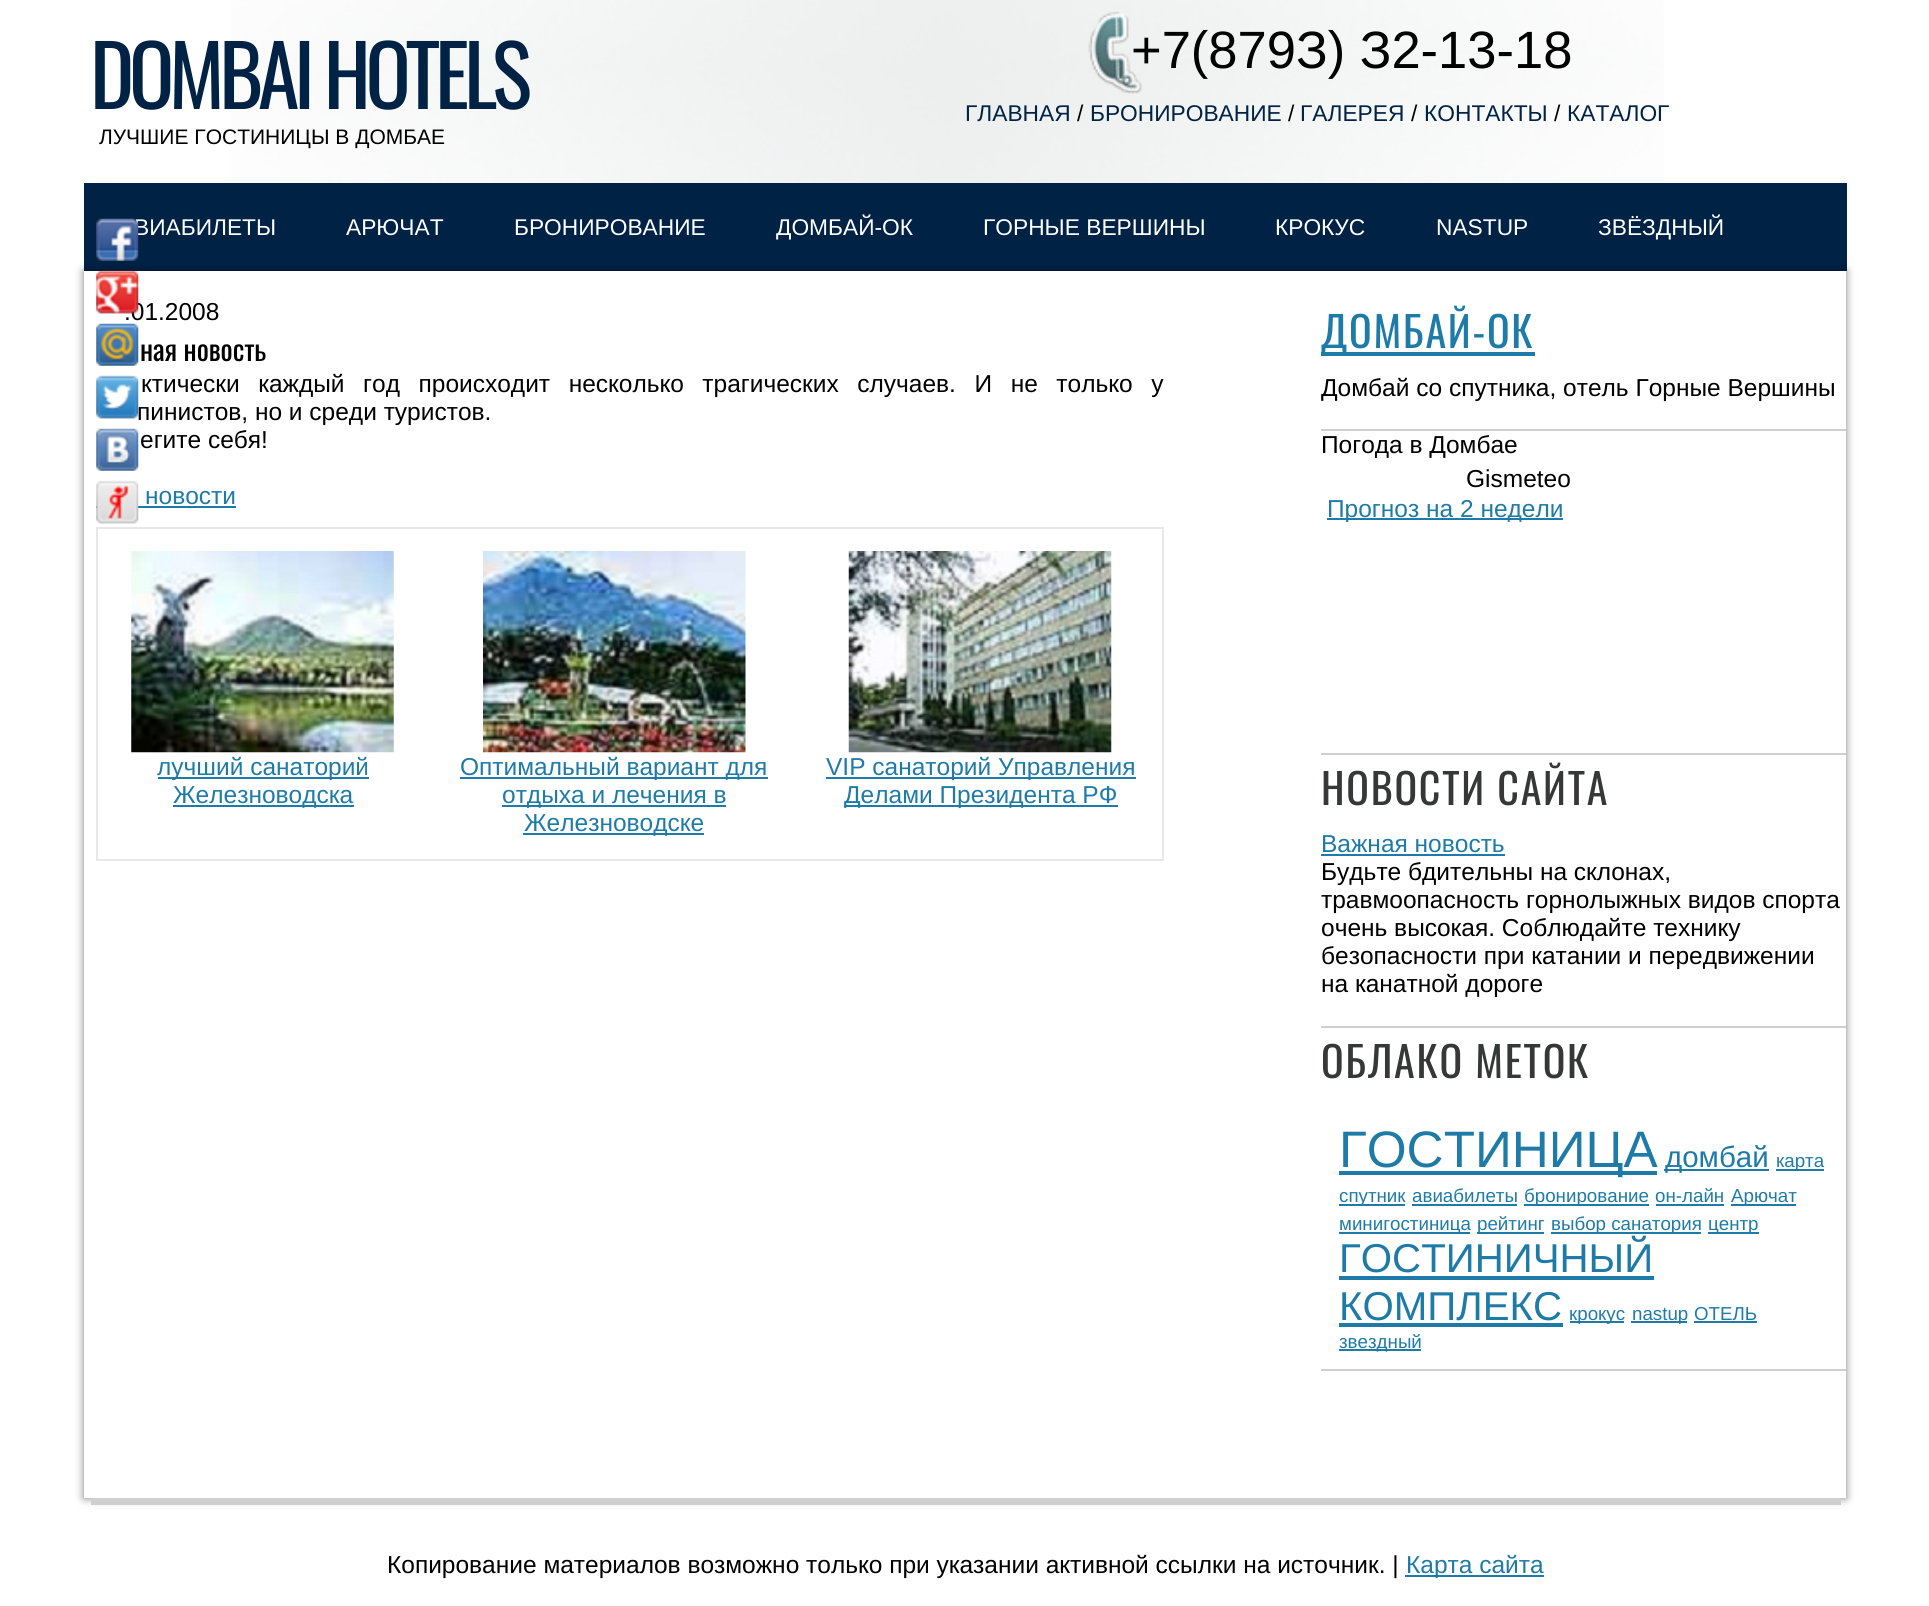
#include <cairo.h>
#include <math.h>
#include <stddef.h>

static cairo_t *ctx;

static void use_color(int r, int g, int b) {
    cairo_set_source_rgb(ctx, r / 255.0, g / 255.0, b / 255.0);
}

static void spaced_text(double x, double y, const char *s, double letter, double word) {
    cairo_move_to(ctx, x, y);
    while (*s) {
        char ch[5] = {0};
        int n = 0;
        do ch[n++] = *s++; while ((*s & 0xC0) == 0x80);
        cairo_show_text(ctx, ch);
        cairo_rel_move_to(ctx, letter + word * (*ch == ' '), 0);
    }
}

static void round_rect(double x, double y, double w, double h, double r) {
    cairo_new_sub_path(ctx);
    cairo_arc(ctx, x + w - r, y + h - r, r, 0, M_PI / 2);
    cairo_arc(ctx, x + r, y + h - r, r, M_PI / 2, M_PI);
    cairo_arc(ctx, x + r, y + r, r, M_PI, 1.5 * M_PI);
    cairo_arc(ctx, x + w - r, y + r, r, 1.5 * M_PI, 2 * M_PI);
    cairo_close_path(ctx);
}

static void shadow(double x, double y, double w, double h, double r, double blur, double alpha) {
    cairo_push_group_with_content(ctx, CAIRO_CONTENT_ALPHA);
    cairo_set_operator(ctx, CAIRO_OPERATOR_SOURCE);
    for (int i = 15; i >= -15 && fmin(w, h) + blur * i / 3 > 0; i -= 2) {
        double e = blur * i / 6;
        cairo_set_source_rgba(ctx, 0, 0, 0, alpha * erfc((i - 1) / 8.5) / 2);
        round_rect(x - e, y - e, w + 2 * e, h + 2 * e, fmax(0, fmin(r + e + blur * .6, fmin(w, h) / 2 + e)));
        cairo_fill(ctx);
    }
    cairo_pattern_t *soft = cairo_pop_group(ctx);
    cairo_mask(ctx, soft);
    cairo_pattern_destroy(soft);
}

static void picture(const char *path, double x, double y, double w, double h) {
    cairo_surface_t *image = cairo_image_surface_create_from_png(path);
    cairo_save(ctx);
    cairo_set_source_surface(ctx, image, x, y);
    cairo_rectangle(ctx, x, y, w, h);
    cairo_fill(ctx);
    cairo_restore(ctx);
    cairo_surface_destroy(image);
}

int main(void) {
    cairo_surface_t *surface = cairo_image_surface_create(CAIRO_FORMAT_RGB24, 1929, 1606);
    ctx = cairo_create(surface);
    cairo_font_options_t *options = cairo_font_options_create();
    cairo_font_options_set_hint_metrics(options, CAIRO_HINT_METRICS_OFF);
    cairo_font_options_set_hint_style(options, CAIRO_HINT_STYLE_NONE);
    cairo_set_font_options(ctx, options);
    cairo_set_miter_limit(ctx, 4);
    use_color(255, 255, 255);
    cairo_paint(ctx);
    picture("img1.png", 231, 0, 1433, 183);
    cairo_select_font_face(ctx, "Oswald", CAIRO_FONT_SLANT_NORMAL, CAIRO_FONT_WEIGHT_NORMAL);
    cairo_set_font_size(ctx, 84);
    use_color(0, 34, 69);
    spaced_text(90, 109, "DOMBAI HOTELS", -5.25, 0);
    picture("img2.png", 1088, 11, 55, 83);
    cairo_select_font_face(ctx, "Liberation Sans", CAIRO_FONT_SLANT_NORMAL, CAIRO_FONT_WEIGHT_NORMAL);
    cairo_set_font_size(ctx, 52.5);
    use_color(0, 0, 0);
    cairo_move_to(ctx, 1131, 68);
    cairo_show_text(ctx, "+7(879З) З2-13-18");
    cairo_set_font_size(ctx, 22.75);
    use_color(0, 34, 69);
    cairo_move_to(ctx, 965, 121);
    cairo_show_text(ctx, "ГЛАВНАЯ");
    use_color(0, 0, 0);
    cairo_move_to(ctx, 1077, 121);
    cairo_show_text(ctx, "/");
    use_color(0, 34, 69);
    cairo_move_to(ctx, 1090, 121);
    cairo_show_text(ctx, "БРОНИРОВАНИЕ");
    use_color(0, 0, 0);
    cairo_move_to(ctx, 1288, 121);
    cairo_show_text(ctx, "/");
    use_color(0, 34, 69);
    cairo_move_to(ctx, 1300, 121);
    cairo_show_text(ctx, "ГАЛЕРЕЯ");
    use_color(0, 0, 0);
    cairo_move_to(ctx, 1411, 121);
    cairo_show_text(ctx, "/");
    use_color(0, 34, 69);
    cairo_move_to(ctx, 1424, 121);
    cairo_show_text(ctx, "КОНТАКТЫ");
    use_color(0, 0, 0);
    cairo_move_to(ctx, 1554, 121);
    cairo_show_text(ctx, "/");
    use_color(0, 34, 69);
    cairo_move_to(ctx, 1567, 121);
    cairo_show_text(ctx, "КАТАЛОГ");
    cairo_set_font_size(ctx, 21);
    use_color(0, 0, 0);
    cairo_move_to(ctx, 99, 144);
    cairo_show_text(ctx, "ЛУЧШИЕ ГОСТИНИЦЫ В ДОМБАЕ");
    use_color(0, 34, 69);
    cairo_rectangle(ctx, 84, 183, 1763, 88);
    cairo_fill(ctx);
    cairo_set_font_size(ctx, 22.75);
    use_color(255, 255, 255);
    cairo_move_to(ctx, 134, 235);
    cairo_show_text(ctx, "ВИАБИЛЕТЫ");
    cairo_move_to(ctx, 346, 235);
    cairo_show_text(ctx, "АРЮЧАТ");
    cairo_move_to(ctx, 514, 235);
    cairo_show_text(ctx, "БРОНИРОВАНИЕ");
    cairo_move_to(ctx, 776, 235);
    cairo_show_text(ctx, "ДОМБАЙ-ОК");
    cairo_move_to(ctx, 983, 235);
    cairo_show_text(ctx, "ГОРНЫЕ ВЕРШИНЫ");
    cairo_move_to(ctx, 1275, 235);
    cairo_show_text(ctx, "КРОКУС");
    cairo_move_to(ctx, 1436, 235);
    cairo_show_text(ctx, "NASTUP");
    cairo_move_to(ctx, 1598, 235);
    cairo_show_text(ctx, "ЗВЁЗДНЫЙ");
    cairo_save(ctx);
    cairo_set_fill_rule(ctx, CAIRO_FILL_RULE_EVEN_ODD);
    cairo_new_path(ctx);
    cairo_move_to(ctx, 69, 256);
    cairo_line_to(ctx, 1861, 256);
    cairo_line_to(ctx, 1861, 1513);
    cairo_line_to(ctx, 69, 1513);
    cairo_close_path(ctx);
    cairo_move_to(ctx, 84, 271);
    cairo_line_to(ctx, 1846, 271);
    cairo_line_to(ctx, 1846, 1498);
    cairo_line_to(ctx, 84, 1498);
    cairo_close_path(ctx);
    cairo_clip(ctx);
    use_color(0, 0, 0);
    shadow(84, 271, 1762, 1227, 0, 4.5, 0.5);
    cairo_restore(ctx);
    picture("img3.png", 96, 218, 43, 43);
    cairo_set_font_size(ctx, 24.5);
    use_color(0, 0, 0);
    cairo_move_to(ctx, 124, 320);
    cairo_show_text(ctx, ".01.2008");
    picture("img4.png", 96, 270, 43, 44);
    picture("img5.png", 96, 323, 43, 43);
    cairo_move_to(ctx, 137, 420);
    cairo_show_text(ctx, "пинистов, но и среди туристов.");
    picture("img6.png", 96, 375, 43, 44);
    picture("img7.png", 96, 428, 43, 43);
    use_color(30, 123, 167);
    cairo_rectangle(ctx, 96, 506, 140, 2);
    cairo_fill(ctx);
    picture("img8.png", 96, 480, 43, 44);
    cairo_select_font_face(ctx, "Oswald", CAIRO_FONT_SLANT_NORMAL, CAIRO_FONT_WEIGHT_NORMAL);
    cairo_set_font_size(ctx, 28.5);
    use_color(0, 0, 0);
    cairo_move_to(ctx, 140, 361);
    cairo_show_text(ctx, "ная новость");
    cairo_select_font_face(ctx, "Liberation Sans", CAIRO_FONT_SLANT_NORMAL, CAIRO_FONT_WEIGHT_NORMAL);
    cairo_set_font_size(ctx, 24.5);
    spaced_text(141, 392, "ктически каждый год происходит несколько трагических случаев. И не только у", 0, 11.75);
    cairo_move_to(ctx, 140, 448);
    cairo_show_text(ctx, "егите себя!");
    use_color(30, 123, 167);
    cairo_move_to(ctx, 145, 504);
    cairo_show_text(ctx, "новости");
    cairo_rectangle(ctx, 97, 528, 1066, 332);
    use_color(232, 232, 232);
    cairo_stroke(ctx);
    picture("img9.png", 131, 551, 263, 202);
    use_color(30, 123, 167);
    cairo_rectangle(ctx, 158, 777, 211, 2);
    cairo_fill(ctx);
    cairo_move_to(ctx, 157, 775);
    cairo_show_text(ctx, "лучший санаторий");
    cairo_rectangle(ctx, 173, 805, 181, 2);
    cairo_fill(ctx);
    cairo_move_to(ctx, 173, 803);
    cairo_show_text(ctx, "Железноводска");
    picture("img10.png", 483, 551, 263, 202);
    cairo_rectangle(ctx, 460, 777, 308, 2);
    cairo_fill(ctx);
    cairo_move_to(ctx, 460, 775);
    cairo_show_text(ctx, "Оптимальный вариант для");
    cairo_rectangle(ctx, 502, 805, 224, 2);
    cairo_fill(ctx);
    cairo_move_to(ctx, 502, 803);
    cairo_show_text(ctx, "отдыха и лечения в");
    cairo_rectangle(ctx, 523, 833, 181, 2);
    cairo_fill(ctx);
    cairo_move_to(ctx, 524, 831);
    cairo_show_text(ctx, "Железноводске");
    picture("img11.png", 848, 551, 264, 202);
    cairo_rectangle(ctx, 826, 777, 310, 2);
    cairo_fill(ctx);
    cairo_move_to(ctx, 826, 775);
    cairo_show_text(ctx, "VIP санаторий Управления");
    cairo_rectangle(ctx, 844, 805, 274, 2);
    cairo_fill(ctx);
    cairo_move_to(ctx, 844, 803);
    cairo_show_text(ctx, "Делами Президента РФ");
    cairo_rectangle(ctx, 1321, 352, 214, 4);
    cairo_fill(ctx);
    cairo_select_font_face(ctx, "Oswald", CAIRO_FONT_SLANT_NORMAL, CAIRO_FONT_WEIGHT_NORMAL);
    cairo_set_font_size(ctx, 42);
    spaced_text(1321, 348, "ДОМБАЙ-ОК", 1.75, 0);
    cairo_select_font_face(ctx, "Liberation Sans", CAIRO_FONT_SLANT_NORMAL, CAIRO_FONT_WEIGHT_NORMAL);
    cairo_set_font_size(ctx, 24.5);
    use_color(0, 0, 0);
    cairo_move_to(ctx, 1321, 396);
    cairo_show_text(ctx, "Домбай со спутника, отель Горные Вершины");
    use_color(208, 207, 208);
    cairo_rectangle(ctx, 1321, 429, 525, 2);
    cairo_fill(ctx);
    use_color(0, 0, 0);
    cairo_move_to(ctx, 1321, 453);
    cairo_show_text(ctx, "Погода в Домбае");
    cairo_move_to(ctx, 1466, 487);
    cairo_show_text(ctx, "Gismeteo");
    use_color(30, 123, 167);
    cairo_rectangle(ctx, 1327, 518, 236, 2);
    cairo_fill(ctx);
    cairo_move_to(ctx, 1327, 517);
    cairo_show_text(ctx, "Прогноз на 2 недели");
    use_color(208, 207, 208);
    cairo_rectangle(ctx, 1321, 753, 525, 2);
    cairo_fill(ctx);
    cairo_select_font_face(ctx, "Oswald", CAIRO_FONT_SLANT_NORMAL, CAIRO_FONT_WEIGHT_NORMAL);
    cairo_set_font_size(ctx, 42);
    use_color(54, 56, 55);
    spaced_text(1321, 805, "НОВОСТИ САЙТА", 1.75, 0);
    cairo_select_font_face(ctx, "Liberation Sans", CAIRO_FONT_SLANT_NORMAL, CAIRO_FONT_WEIGHT_NORMAL);
    cairo_set_font_size(ctx, 24.5);
    use_color(30, 123, 167);
    cairo_move_to(ctx, 1321, 852);
    cairo_show_text(ctx, "Важная новость");
    cairo_rectangle(ctx, 1321, 854, 184, 2);
    cairo_fill(ctx);
    use_color(0, 0, 0);
    cairo_move_to(ctx, 1321, 880);
    cairo_show_text(ctx, "Будьте бдительны на склонах,");
    cairo_move_to(ctx, 1321, 908);
    cairo_show_text(ctx, "травмоопасность горнолыжных видов спорта");
    cairo_move_to(ctx, 1321, 936);
    cairo_show_text(ctx, "очень высокая. Соблюдайте технику");
    cairo_move_to(ctx, 1321, 964);
    cairo_show_text(ctx, "безопасности при катании и передвижении");
    cairo_move_to(ctx, 1321, 992);
    cairo_show_text(ctx, "на канатной дороге");
    use_color(208, 207, 208);
    cairo_rectangle(ctx, 1321, 1026, 525, 2);
    cairo_fill(ctx);
    cairo_select_font_face(ctx, "Oswald", CAIRO_FONT_SLANT_NORMAL, CAIRO_FONT_WEIGHT_NORMAL);
    cairo_set_font_size(ctx, 42);
    use_color(54, 56, 55);
    spaced_text(1321, 1078, "ОБЛАКО МЕТОК", 1.75, 0);
    use_color(30, 123, 167);
    cairo_rectangle(ctx, 1339, 1171, 318, 4);
    cairo_fill(ctx);
    cairo_select_font_face(ctx, "Liberation Sans", CAIRO_FONT_SLANT_NORMAL, CAIRO_FONT_WEIGHT_NORMAL);
    cairo_set_font_size(ctx, 51.25);
    cairo_move_to(ctx, 1339, 1167);
    cairo_show_text(ctx, "ГОСТИНИЦА");
    cairo_rectangle(ctx, 1664, 1169, 105, 2);
    cairo_fill(ctx);
    cairo_set_font_size(ctx, 29.5);
    cairo_move_to(ctx, 1665, 1167);
    cairo_show_text(ctx, "домбай");
    cairo_rectangle(ctx, 1776, 1169, 48, 2);
    cairo_fill(ctx);
    cairo_set_font_size(ctx, 18.75);
    cairo_move_to(ctx, 1776, 1167);
    cairo_show_text(ctx, "карта");
    cairo_rectangle(ctx, 1339, 1204, 66, 2);
    cairo_fill(ctx);
    cairo_move_to(ctx, 1339, 1202);
    cairo_show_text(ctx, "спутник");
    cairo_move_to(ctx, 1412, 1202);
    cairo_show_text(ctx, "авиабилеты");
    cairo_rectangle(ctx, 1412, 1204, 105, 2);
    cairo_fill(ctx);
    cairo_rectangle(ctx, 1524, 1204, 125, 2);
    cairo_fill(ctx);
    cairo_move_to(ctx, 1524, 1202);
    cairo_show_text(ctx, "бронирование");
    cairo_move_to(ctx, 1655, 1202);
    cairo_show_text(ctx, "он-лайн");
    cairo_rectangle(ctx, 1656, 1204, 68, 2);
    cairo_fill(ctx);
    cairo_rectangle(ctx, 1731, 1204, 65, 2);
    cairo_fill(ctx);
    cairo_move_to(ctx, 1731, 1202);
    cairo_show_text(ctx, "Арючат");
    cairo_rectangle(ctx, 1339, 1232, 131, 2);
    cairo_fill(ctx);
    cairo_move_to(ctx, 1339, 1230);
    cairo_show_text(ctx, "минигостиница");
    cairo_rectangle(ctx, 1477, 1232, 67, 2);
    cairo_fill(ctx);
    cairo_move_to(ctx, 1477, 1230);
    cairo_show_text(ctx, "рейтинг");
    cairo_rectangle(ctx, 1551, 1232, 150, 2);
    cairo_fill(ctx);
    cairo_move_to(ctx, 1551, 1230);
    cairo_show_text(ctx, "выбор санатория");
    cairo_rectangle(ctx, 1708, 1232, 51, 2);
    cairo_fill(ctx);
    cairo_move_to(ctx, 1708, 1230);
    cairo_show_text(ctx, "центр");
    cairo_set_font_size(ctx, 40.25);
    cairo_move_to(ctx, 1339, 1272);
    cairo_show_text(ctx, "ГОСТИНИЧНЫЙ");
    cairo_rectangle(ctx, 1339, 1276, 315, 4);
    cairo_fill(ctx);
    cairo_move_to(ctx, 1339, 1320);
    cairo_show_text(ctx, "КОМПЛЕКС");
    cairo_rectangle(ctx, 1339, 1323, 224, 4);
    cairo_fill(ctx);
    cairo_rectangle(ctx, 1570, 1321, 54, 2);
    cairo_fill(ctx);
    cairo_set_font_size(ctx, 18.75);
    cairo_move_to(ctx, 1569, 1320);
    cairo_show_text(ctx, "крокус");
    cairo_rectangle(ctx, 1631, 1321, 56, 2);
    cairo_fill(ctx);
    cairo_move_to(ctx, 1632, 1320);
    cairo_show_text(ctx, "nastup");
    cairo_move_to(ctx, 1694, 1320);
    cairo_show_text(ctx, "ОТЕЛЬ");
    cairo_rectangle(ctx, 1694, 1321, 63, 2);
    cairo_fill(ctx);
    cairo_rectangle(ctx, 1339, 1349, 82, 2);
    cairo_fill(ctx);
    cairo_move_to(ctx, 1339, 1348);
    cairo_show_text(ctx, "звездный");
    use_color(208, 207, 208);
    cairo_rectangle(ctx, 1321, 1369, 525, 2);
    cairo_fill(ctx);
    cairo_rectangle(ctx, 91, 1498, 1750, 7);
    cairo_fill(ctx);
    cairo_set_font_size(ctx, 24.5);
    use_color(0, 0, 0);
    cairo_move_to(ctx, 387, 1573);
    cairo_show_text(ctx, "Копирование материалов возможно только при указании активной ссылки на источник. |");
    use_color(30, 123, 167);
    cairo_rectangle(ctx, 1405, 1575, 139, 2);
    cairo_fill(ctx);
    cairo_move_to(ctx, 1406, 1573);
    cairo_show_text(ctx, "Карта сайта");
    cairo_surface_write_to_png(surface, "result.png");
    cairo_font_options_destroy(options);
    cairo_destroy(ctx);
    cairo_surface_destroy(surface);
    return 0;
}
